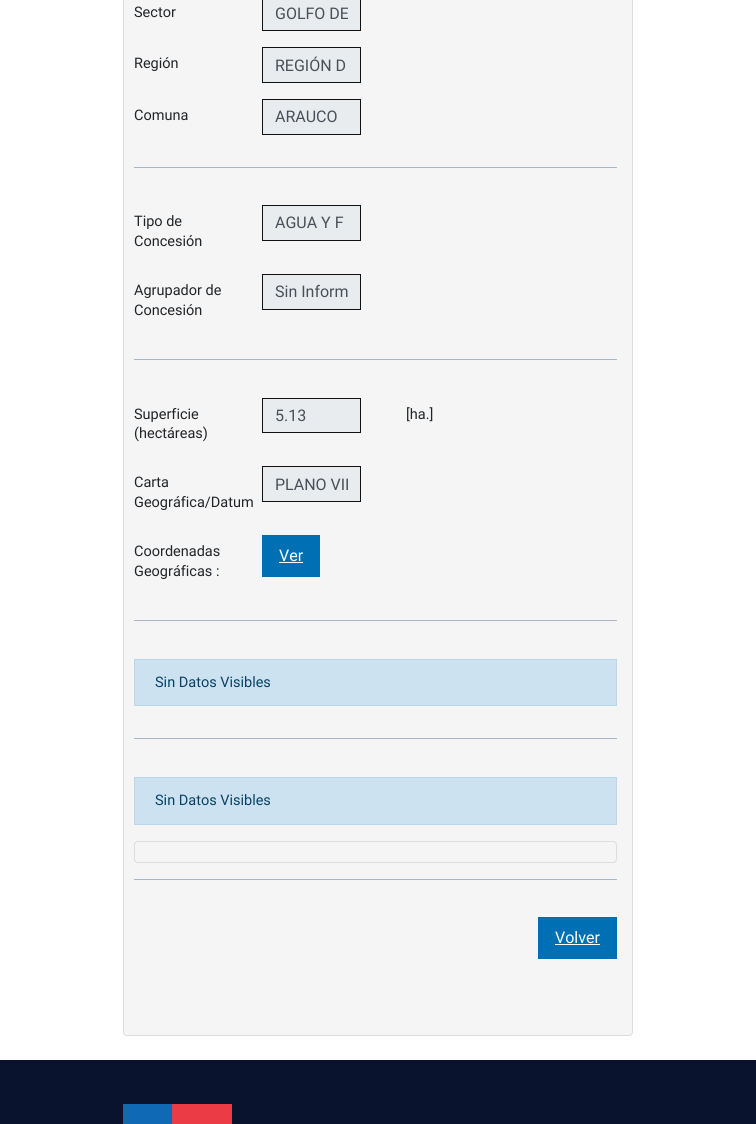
#include <cairo.h>
#include <math.h>
#include <stddef.h>

static cairo_t *ctx;

static void use_color(int r, int g, int b) {
    cairo_set_source_rgb(ctx, r / 255.0, g / 255.0, b / 255.0);
}

static void round_rect(double x, double y, double w, double h, double r) {
    cairo_new_sub_path(ctx);
    cairo_arc(ctx, x + w - r, y + h - r, r, 0, M_PI / 2);
    cairo_arc(ctx, x + r, y + h - r, r, M_PI / 2, M_PI);
    cairo_arc(ctx, x + r, y + r, r, M_PI, 1.5 * M_PI);
    cairo_arc(ctx, x + w - r, y + r, r, 1.5 * M_PI, 2 * M_PI);
    cairo_close_path(ctx);
}

static void picture(const char *path, double x, double y, double w, double h) {
    cairo_surface_t *image = cairo_image_surface_create_from_png(path);
    cairo_save(ctx);
    cairo_set_source_surface(ctx, image, x, y);
    cairo_rectangle(ctx, x, y, w, h);
    cairo_fill(ctx);
    cairo_restore(ctx);
    cairo_surface_destroy(image);
}

int main(void) {
    cairo_surface_t *surface = cairo_image_surface_create(CAIRO_FORMAT_RGB24, 756, 1124);
    ctx = cairo_create(surface);
    cairo_font_options_t *options = cairo_font_options_create();
    cairo_font_options_set_hint_metrics(options, CAIRO_HINT_METRICS_OFF);
    cairo_font_options_set_hint_style(options, CAIRO_HINT_STYLE_NONE);
    cairo_set_font_options(ctx, options);
    cairo_set_miter_limit(ctx, 4);
    use_color(255, 255, 255);
    cairo_paint(ctx);
    use_color(245, 245, 245);
    round_rect(123.5, -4.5, 509, 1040, 3.5);
    cairo_fill_preserve(ctx);
    use_color(221, 221, 221);
    cairo_set_line_width(ctx, 1);
    cairo_stroke(ctx);
    cairo_select_font_face(ctx, "Roboto", CAIRO_FONT_SLANT_NORMAL, CAIRO_FONT_WEIGHT_NORMAL);
    cairo_set_font_size(ctx, 14.5);
    use_color(33, 37, 41);
    cairo_move_to(ctx, 134, 17);
    cairo_show_text(ctx, "Sector");
    use_color(233, 236, 239);
    cairo_rectangle(ctx, 262.5, -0.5, 98, 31);
    cairo_fill_preserve(ctx);
    use_color(17, 17, 17);
    cairo_stroke(ctx);
    cairo_save(ctx);
    cairo_rectangle(ctx, 275, 4, 73, 19);
    cairo_clip(ctx);
    cairo_set_font_size(ctx, 16);
    use_color(73, 80, 87);
    cairo_move_to(ctx, 275, 19);
    cairo_show_text(ctx, "GOLFO DE");
    cairo_restore(ctx);
    use_color(33, 37, 41);
    cairo_move_to(ctx, 134, 68);
    cairo_show_text(ctx, "Región");
    use_color(233, 236, 239);
    cairo_rectangle(ctx, 262.5, 47.5, 98, 35);
    cairo_fill_preserve(ctx);
    use_color(17, 17, 17);
    cairo_stroke(ctx);
    cairo_set_font_size(ctx, 16);
    use_color(73, 80, 87);
    cairo_move_to(ctx, 275, 71);
    cairo_show_text(ctx, "REGIÓN D");
    cairo_set_font_size(ctx, 14.5);
    use_color(33, 37, 41);
    cairo_move_to(ctx, 134, 120);
    cairo_show_text(ctx, "Comuna");
    use_color(233, 236, 239);
    cairo_rectangle(ctx, 262.5, 99.5, 98, 35);
    cairo_fill_preserve(ctx);
    use_color(17, 17, 17);
    cairo_stroke(ctx);
    cairo_set_font_size(ctx, 16);
    use_color(73, 80, 87);
    cairo_move_to(ctx, 275, 122);
    cairo_show_text(ctx, "ARAUCO");
    use_color(168, 183, 199);
    cairo_rectangle(ctx, 134, 167, 483, 1);
    cairo_fill(ctx);
    cairo_set_font_size(ctx, 14.5);
    use_color(33, 37, 41);
    cairo_move_to(ctx, 134, 226);
    cairo_show_text(ctx, "Tipo de");
    cairo_move_to(ctx, 134, 246);
    cairo_show_text(ctx, "Concesión");
    use_color(233, 236, 239);
    cairo_rectangle(ctx, 262.5, 205.5, 98, 35);
    cairo_fill_preserve(ctx);
    use_color(17, 17, 17);
    cairo_stroke(ctx);
    cairo_set_font_size(ctx, 16);
    use_color(73, 80, 87);
    cairo_move_to(ctx, 275, 228);
    cairo_show_text(ctx, "AGUA Y F");
    cairo_set_font_size(ctx, 14.5);
    use_color(33, 37, 41);
    cairo_move_to(ctx, 134, 295);
    cairo_show_text(ctx, "Agrupador de");
    cairo_move_to(ctx, 134, 315);
    cairo_show_text(ctx, "Concesión");
    use_color(233, 236, 239);
    cairo_rectangle(ctx, 262.5, 274.5, 98, 35);
    cairo_fill_preserve(ctx);
    use_color(17, 17, 17);
    cairo_stroke(ctx);
    cairo_set_font_size(ctx, 16);
    use_color(73, 80, 87);
    cairo_move_to(ctx, 275, 297);
    cairo_show_text(ctx, "Sin Inform");
    use_color(168, 183, 199);
    cairo_rectangle(ctx, 134, 359, 483, 1);
    cairo_fill(ctx);
    cairo_set_font_size(ctx, 14.5);
    use_color(33, 37, 41);
    cairo_move_to(ctx, 134, 419);
    cairo_show_text(ctx, "Superficie");
    cairo_move_to(ctx, 134, 438);
    cairo_show_text(ctx, "(hectáreas)");
    use_color(233, 236, 239);
    cairo_rectangle(ctx, 262.5, 398.5, 98, 34);
    cairo_fill_preserve(ctx);
    use_color(17, 17, 17);
    cairo_stroke(ctx);
    cairo_set_font_size(ctx, 16);
    use_color(73, 80, 87);
    cairo_move_to(ctx, 275, 421);
    cairo_show_text(ctx, "5.13");
    cairo_set_font_size(ctx, 14.5);
    use_color(33, 37, 41);
    cairo_move_to(ctx, 406, 419);
    cairo_show_text(ctx, "[ha.]");
    cairo_move_to(ctx, 134, 487);
    cairo_show_text(ctx, "Carta");
    cairo_move_to(ctx, 134, 507);
    cairo_show_text(ctx, "Geográfica/Datum");
    use_color(233, 236, 239);
    cairo_rectangle(ctx, 262.5, 466.5, 98, 35);
    cairo_fill_preserve(ctx);
    use_color(17, 17, 17);
    cairo_stroke(ctx);
    cairo_save(ctx);
    cairo_rectangle(ctx, 275, 475, 73, 19);
    cairo_clip(ctx);
    cairo_set_font_size(ctx, 16);
    use_color(73, 80, 87);
    cairo_move_to(ctx, 275, 490);
    cairo_show_text(ctx, "PLANO VII");
    cairo_restore(ctx);
    use_color(33, 37, 41);
    cairo_move_to(ctx, 134, 556);
    cairo_show_text(ctx, "Coordenadas");
    cairo_move_to(ctx, 134, 576);
    cairo_show_text(ctx, "Geográficas :");
    use_color(0, 111, 179);
    cairo_rectangle(ctx, 262, 535, 58, 42);
    cairo_fill(ctx);
    cairo_set_font_size(ctx, 16);
    use_color(255, 255, 255);
    cairo_move_to(ctx, 279, 561);
    cairo_show_text(ctx, "Ver");
    cairo_rectangle(ctx, 279, 562, 24, 1);
    cairo_fill(ctx);
    use_color(168, 183, 199);
    cairo_rectangle(ctx, 134, 620, 483, 1);
    cairo_fill(ctx);
    use_color(204, 226, 240);
    cairo_rectangle(ctx, 134.5, 659.5, 482, 46);
    cairo_fill_preserve(ctx);
    use_color(184, 215, 234);
    cairo_stroke(ctx);
    cairo_set_font_size(ctx, 14.5);
    use_color(8, 66, 101);
    cairo_move_to(ctx, 155, 687);
    cairo_show_text(ctx, "Sin Datos Visibles");
    use_color(168, 183, 199);
    cairo_rectangle(ctx, 134, 738, 483, 1);
    cairo_fill(ctx);
    use_color(204, 226, 240);
    cairo_rectangle(ctx, 134.5, 777.5, 482, 47);
    cairo_fill_preserve(ctx);
    use_color(184, 215, 234);
    cairo_stroke(ctx);
    use_color(8, 66, 101);
    cairo_move_to(ctx, 155, 805);
    cairo_show_text(ctx, "Sin Datos Visibles");
    round_rect(134.5, 841.5, 482, 21, 3.5);
    use_color(221, 221, 221);
    cairo_stroke(ctx);
    use_color(168, 183, 199);
    cairo_rectangle(ctx, 134, 879, 483, 1);
    cairo_fill(ctx);
    use_color(0, 111, 179);
    cairo_rectangle(ctx, 538, 917, 79, 42);
    cairo_fill(ctx);
    cairo_set_font_size(ctx, 16);
    use_color(255, 255, 255);
    cairo_move_to(ctx, 555, 943);
    cairo_show_text(ctx, "Volver");
    cairo_rectangle(ctx, 555, 944, 45, 1);
    cairo_fill(ctx);
    use_color(10, 19, 45);
    cairo_rectangle(ctx, 0, 1060, 756, 64);
    cairo_fill(ctx);
    picture("img1.png", 123, 1104, 109, 20);
    cairo_surface_write_to_png(surface, "result.png");
    cairo_font_options_destroy(options);
    cairo_destroy(ctx);
    cairo_surface_destroy(surface);
    return 0;
}
